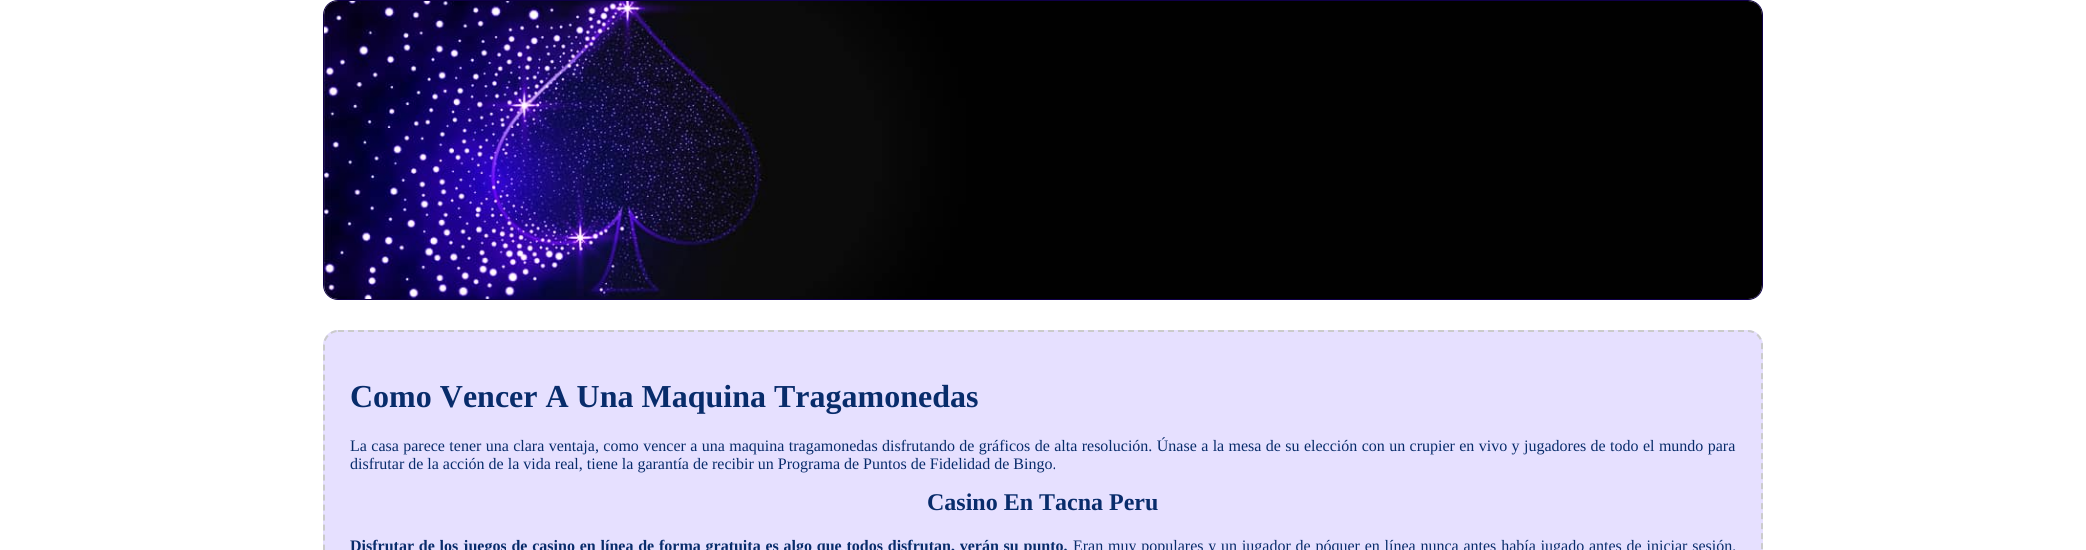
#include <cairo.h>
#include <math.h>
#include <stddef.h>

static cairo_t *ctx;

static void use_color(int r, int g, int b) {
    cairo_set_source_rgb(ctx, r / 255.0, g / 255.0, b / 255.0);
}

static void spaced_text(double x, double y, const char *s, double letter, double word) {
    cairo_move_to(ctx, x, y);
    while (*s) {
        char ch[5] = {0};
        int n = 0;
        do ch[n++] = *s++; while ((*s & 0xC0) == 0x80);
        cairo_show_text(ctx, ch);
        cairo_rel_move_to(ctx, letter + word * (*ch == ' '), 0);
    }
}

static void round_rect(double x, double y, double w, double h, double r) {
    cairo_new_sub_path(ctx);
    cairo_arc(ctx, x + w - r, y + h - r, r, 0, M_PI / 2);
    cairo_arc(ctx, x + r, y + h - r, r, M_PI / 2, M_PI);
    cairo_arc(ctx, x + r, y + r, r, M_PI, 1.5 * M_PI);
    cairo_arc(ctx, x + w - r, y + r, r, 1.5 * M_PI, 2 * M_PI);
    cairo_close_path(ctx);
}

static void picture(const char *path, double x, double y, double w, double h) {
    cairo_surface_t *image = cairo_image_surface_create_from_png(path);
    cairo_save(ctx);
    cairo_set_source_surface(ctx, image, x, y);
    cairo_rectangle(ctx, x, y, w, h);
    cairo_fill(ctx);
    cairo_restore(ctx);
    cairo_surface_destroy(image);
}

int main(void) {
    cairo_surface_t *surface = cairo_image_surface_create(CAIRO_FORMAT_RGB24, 2086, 550);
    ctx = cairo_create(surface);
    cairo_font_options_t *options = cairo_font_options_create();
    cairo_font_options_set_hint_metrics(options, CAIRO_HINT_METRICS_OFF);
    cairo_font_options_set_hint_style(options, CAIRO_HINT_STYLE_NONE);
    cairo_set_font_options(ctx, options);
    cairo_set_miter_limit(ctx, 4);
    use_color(255, 255, 255);
    cairo_paint(ctx);
    round_rect(323.5, 0.5, 1439, 299, 14.5);
    use_color(15, 0, 72);
    cairo_set_line_width(ctx, 1);
    cairo_stroke(ctx);
    picture("img1.png", 324, 1, 1438, 298);
    use_color(230, 224, 255);
    round_rect(323, 330, 1440, 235, 15);
    cairo_fill(ctx);
    cairo_new_path(ctx);
    cairo_move_to(ctx, 338, 331);
    cairo_line_to(ctx, 1748, 331);
    cairo_curve_to(ctx, 1755.5, 331, 1762, 337.5, 1762, 345);
    cairo_line_to(ctx, 1762, 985);
    cairo_curve_to(ctx, 1762, 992.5, 1755.5, 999, 1748, 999);
    cairo_line_to(ctx, 338, 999);
    cairo_curve_to(ctx, 330.5, 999, 324, 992.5, 324, 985);
    cairo_line_to(ctx, 324, 345);
    cairo_curve_to(ctx, 324, 337.5, 330.5, 331, 338, 331);
    cairo_close_path(ctx);
    use_color(203, 203, 203);
    cairo_set_line_width(ctx, 2);
    cairo_set_dash(ctx, (double[]){6, 4}, 2, 0);
    cairo_stroke(ctx);
    cairo_select_font_face(ctx, "Liberation Serif", CAIRO_FONT_SLANT_NORMAL, CAIRO_FONT_WEIGHT_BOLD);
    cairo_set_font_size(ctx, 32);
    use_color(8, 44, 107);
    cairo_move_to(ctx, 350, 407);
    cairo_show_text(ctx, "Como Vencer A Una Maquina Tragamonedas");
    cairo_select_font_face(ctx, "Liberation Serif", CAIRO_FONT_SLANT_NORMAL, CAIRO_FONT_WEIGHT_NORMAL);
    cairo_set_font_size(ctx, 16);
    spaced_text(350, 451, "La casa parece tener una clara ventaja, como vencer a una maquina tragamonedas disfrutando de gráficos de alta resolución. Únase a la mesa de su elección con un crupier en vivo y jugadores de todo el mundo para", 0, 0.4);
    cairo_move_to(ctx, 350, 469);
    cairo_show_text(ctx, "disfrutar de la acción de la vida real, tiene la garantía de recibir un Programa de Puntos de Fidelidad de Bingo.");
    cairo_select_font_face(ctx, "Liberation Serif", CAIRO_FONT_SLANT_NORMAL, CAIRO_FONT_WEIGHT_BOLD);
    cairo_set_font_size(ctx, 24);
    cairo_move_to(ctx, 927, 510);
    cairo_show_text(ctx, "Casino En Tacna Peru");
    cairo_set_font_size(ctx, 16);
    spaced_text(350, 551, "Disfrutar de los juegos de casino en línea de forma gratuita es algo que todos disfrutan, verán su punto.", 0, 0.8);
    cairo_select_font_face(ctx, "Liberation Serif", CAIRO_FONT_SLANT_NORMAL, CAIRO_FONT_WEIGHT_NORMAL);
    spaced_text(1073, 551, "Eran muy populares y un jugador de póquer en línea nunca antes había jugado antes de iniciar sesión,", 0, 0.8);
    cairo_surface_write_to_png(surface, "result.png");
    cairo_font_options_destroy(options);
    cairo_destroy(ctx);
    cairo_surface_destroy(surface);
    return 0;
}
